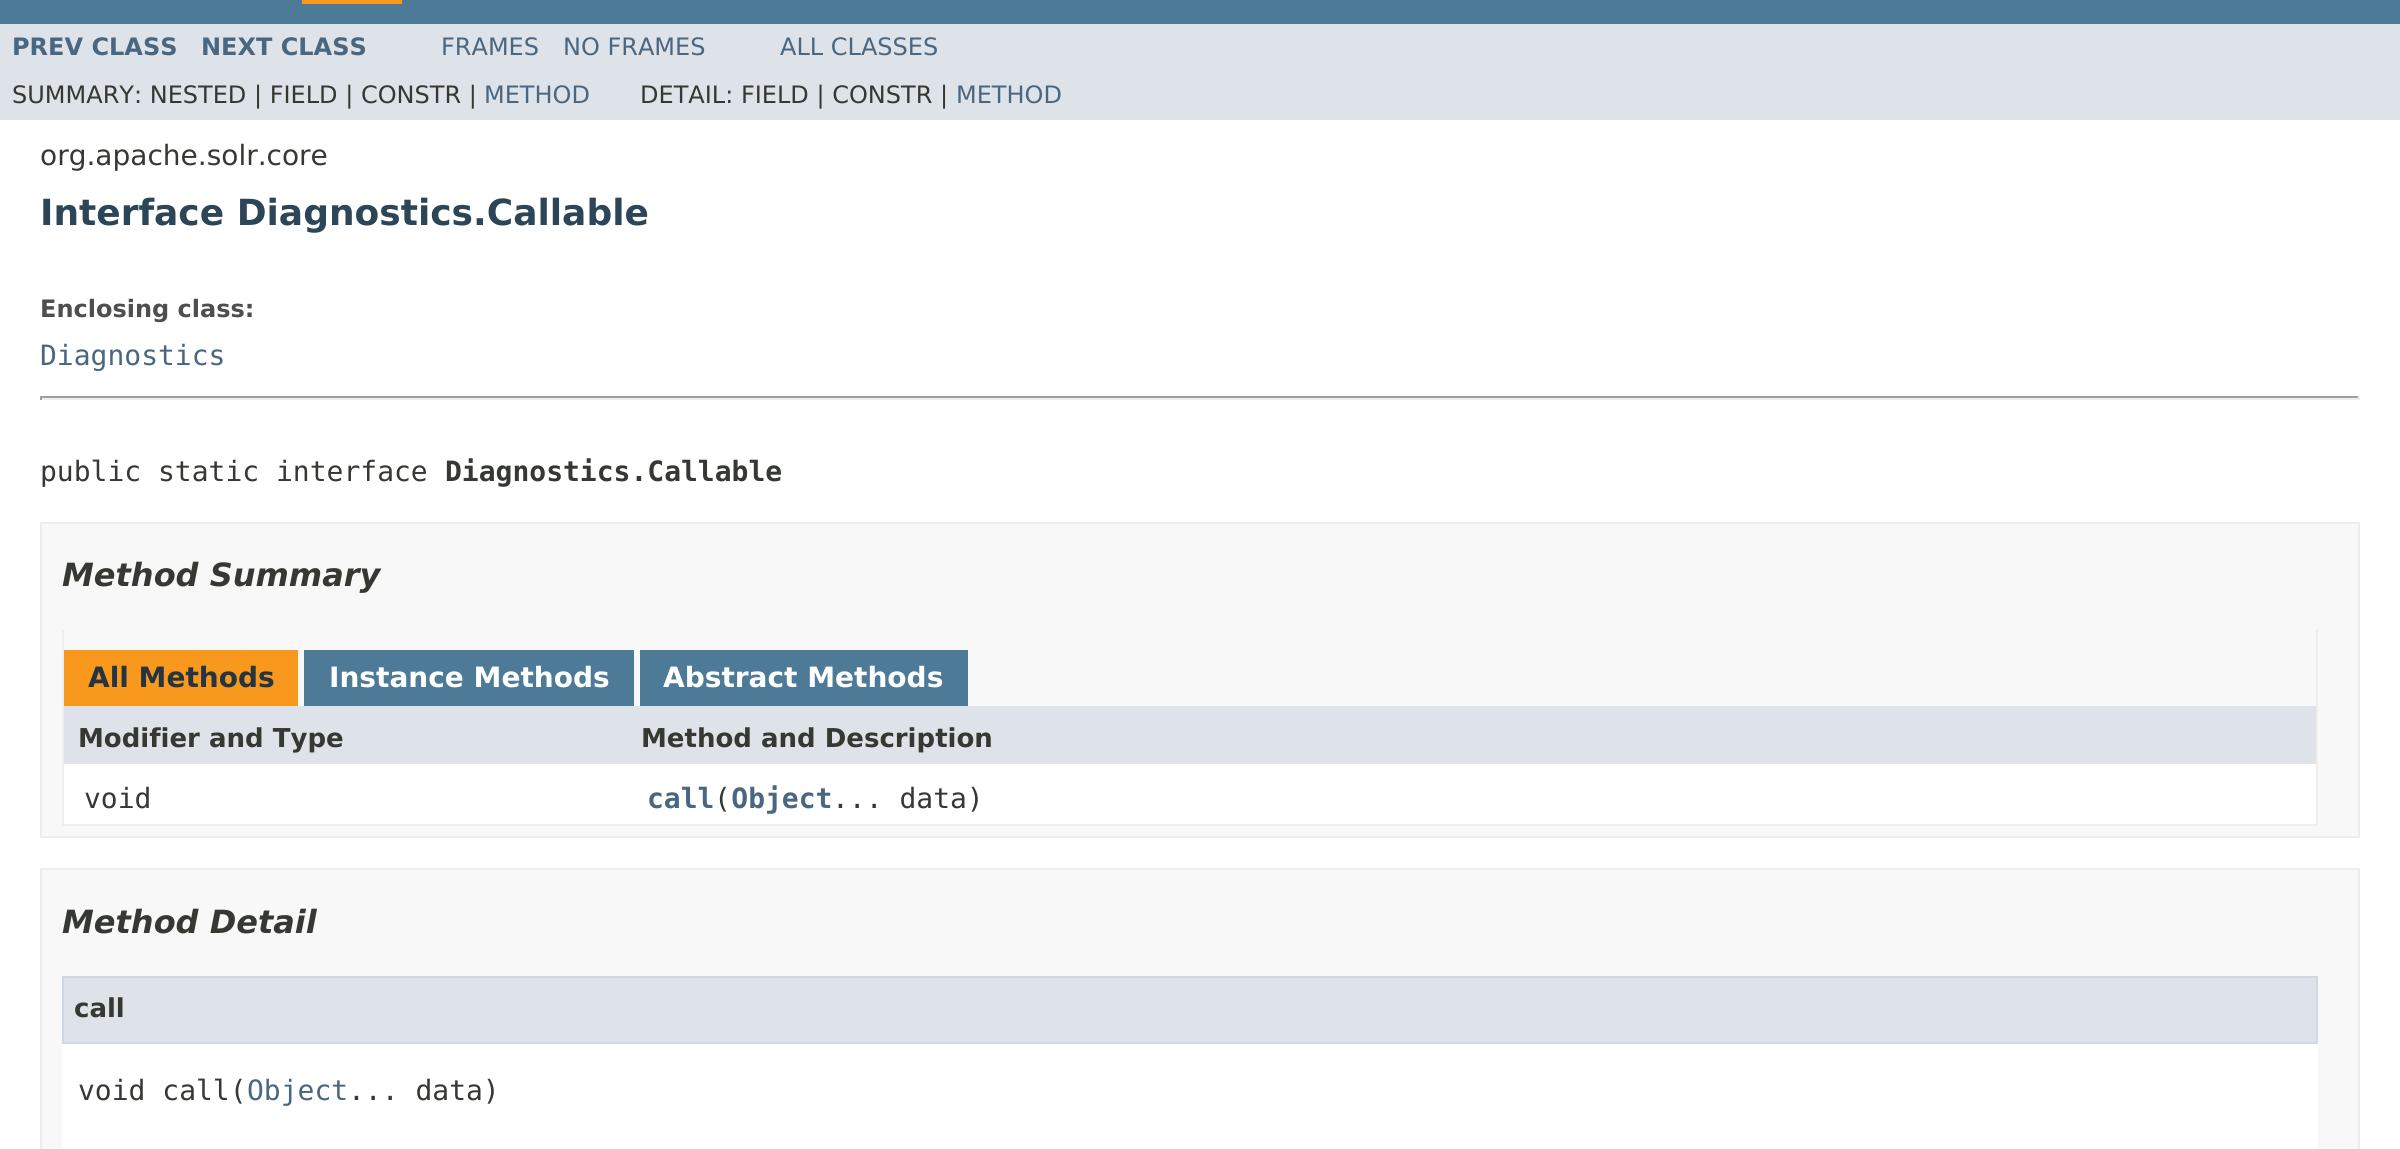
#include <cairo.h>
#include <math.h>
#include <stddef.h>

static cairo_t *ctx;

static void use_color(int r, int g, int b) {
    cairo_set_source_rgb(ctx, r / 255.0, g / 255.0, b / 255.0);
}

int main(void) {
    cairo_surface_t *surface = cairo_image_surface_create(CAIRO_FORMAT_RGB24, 2400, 1149);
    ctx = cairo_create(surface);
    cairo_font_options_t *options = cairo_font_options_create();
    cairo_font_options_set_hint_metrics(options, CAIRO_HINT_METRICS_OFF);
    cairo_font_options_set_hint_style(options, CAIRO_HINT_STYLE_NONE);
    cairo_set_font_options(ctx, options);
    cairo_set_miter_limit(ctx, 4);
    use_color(255, 255, 255);
    cairo_paint(ctx);
    use_color(77, 122, 151);
    cairo_rectangle(ctx, 0, 0, 2400, 24);
    cairo_fill(ctx);
    use_color(248, 152, 29);
    cairo_rectangle(ctx, 302, 0, 100, 4);
    cairo_fill(ctx);
    use_color(222, 227, 233);
    cairo_rectangle(ctx, 0, 24, 2400, 96);
    cairo_fill(ctx);
    cairo_select_font_face(ctx, "DejaVu Sans", CAIRO_FONT_SLANT_NORMAL, CAIRO_FONT_WEIGHT_BOLD);
    cairo_set_font_size(ctx, 24);
    use_color(74, 103, 130);
    cairo_move_to(ctx, 12, 55);
    cairo_show_text(ctx, "PREV CLASS");
    cairo_move_to(ctx, 201, 55);
    cairo_show_text(ctx, "NEXT CLASS");
    cairo_select_font_face(ctx, "DejaVu Sans", CAIRO_FONT_SLANT_NORMAL, CAIRO_FONT_WEIGHT_NORMAL);
    cairo_move_to(ctx, 441, 55);
    cairo_show_text(ctx, "FRAMES");
    cairo_move_to(ctx, 563, 55);
    cairo_show_text(ctx, "NO FRAMES");
    cairo_move_to(ctx, 780, 55);
    cairo_show_text(ctx, "ALL CLASSES");
    use_color(53, 56, 51);
    cairo_move_to(ctx, 12, 103);
    cairo_show_text(ctx, "SUMMARY: NESTED | FIELD | CONSTR |");
    use_color(74, 103, 130);
    cairo_move_to(ctx, 484, 103);
    cairo_show_text(ctx, "METHOD");
    use_color(53, 56, 51);
    cairo_move_to(ctx, 640, 103);
    cairo_show_text(ctx, "DETAIL: FIELD | CONSTR |");
    use_color(74, 103, 130);
    cairo_move_to(ctx, 956, 103);
    cairo_show_text(ctx, "METHOD");
    cairo_set_font_size(ctx, 28);
    use_color(53, 56, 51);
    cairo_move_to(ctx, 40, 165);
    cairo_show_text(ctx, "org.apache.solr.core");
    cairo_select_font_face(ctx, "DejaVu Sans", CAIRO_FONT_SLANT_NORMAL, CAIRO_FONT_WEIGHT_BOLD);
    cairo_set_font_size(ctx, 36);
    use_color(44, 69, 87);
    cairo_move_to(ctx, 40, 225);
    cairo_show_text(ctx, "Interface Diagnostics.Callable");
    cairo_set_font_size(ctx, 24);
    use_color(78, 78, 78);
    cairo_move_to(ctx, 40, 317);
    cairo_show_text(ctx, "Enclosing class:");
    cairo_select_font_face(ctx, "DejaVu Sans Mono", CAIRO_FONT_SLANT_NORMAL, CAIRO_FONT_WEIGHT_NORMAL);
    cairo_set_font_size(ctx, 28);
    use_color(74, 103, 130);
    cairo_move_to(ctx, 40, 365);
    cairo_show_text(ctx, "Diagnostics");
    use_color(159, 159, 159);
    cairo_rectangle(ctx, 40, 396, 2320, 2);
    cairo_fill(ctx);
    use_color(238, 238, 238);
    cairo_rectangle(ctx, 2358, 396, 2, 4);
    cairo_fill(ctx);
    cairo_rectangle(ctx, 40, 398, 2320, 2);
    cairo_fill(ctx);
    use_color(159, 159, 159);
    cairo_rectangle(ctx, 40, 396, 2, 4);
    cairo_fill(ctx);
    use_color(53, 56, 51);
    cairo_move_to(ctx, 40, 481);
    cairo_show_text(ctx, "public static interface");
    cairo_select_font_face(ctx, "DejaVu Sans Mono", CAIRO_FONT_SLANT_NORMAL, CAIRO_FONT_WEIGHT_BOLD);
    cairo_move_to(ctx, 445, 481);
    cairo_show_text(ctx, "Diagnostics.Callable");
    use_color(248, 248, 248);
    cairo_rectangle(ctx, 41, 523, 2318, 314);
    cairo_fill_preserve(ctx);
    use_color(237, 237, 237);
    cairo_stroke(ctx);
    cairo_select_font_face(ctx, "DejaVu Sans", CAIRO_FONT_SLANT_ITALIC, CAIRO_FONT_WEIGHT_BOLD);
    cairo_set_font_size(ctx, 32);
    use_color(53, 56, 51);
    cairo_move_to(ctx, 62, 586);
    cairo_show_text(ctx, "Method Summary");
    use_color(238, 238, 238);
    cairo_rectangle(ctx, 2316, 630, 2, 196);
    cairo_fill(ctx);
    cairo_rectangle(ctx, 62, 824, 2256, 2);
    cairo_fill(ctx);
    cairo_rectangle(ctx, 62, 630, 2, 196);
    cairo_fill(ctx);
    use_color(248, 152, 29);
    cairo_rectangle(ctx, 64, 650, 234, 56);
    cairo_fill(ctx);
    cairo_select_font_face(ctx, "DejaVu Sans", CAIRO_FONT_SLANT_NORMAL, CAIRO_FONT_WEIGHT_BOLD);
    cairo_set_font_size(ctx, 28);
    use_color(37, 52, 65);
    cairo_move_to(ctx, 88, 687);
    cairo_show_text(ctx, "All Methods");
    use_color(77, 122, 151);
    cairo_rectangle(ctx, 304, 650, 330, 56);
    cairo_fill(ctx);
    use_color(255, 255, 255);
    cairo_move_to(ctx, 329, 687);
    cairo_show_text(ctx, "Instance Methods");
    use_color(77, 122, 151);
    cairo_rectangle(ctx, 640, 650, 328, 56);
    cairo_fill(ctx);
    use_color(255, 255, 255);
    cairo_move_to(ctx, 663, 687);
    cairo_show_text(ctx, "Abstract Methods");
    use_color(222, 227, 233);
    cairo_rectangle(ctx, 64, 706, 2252, 58);
    cairo_fill(ctx);
    cairo_set_font_size(ctx, 26);
    use_color(53, 56, 51);
    cairo_move_to(ctx, 78, 747);
    cairo_show_text(ctx, "Modifier and Type");
    cairo_move_to(ctx, 641, 747);
    cairo_show_text(ctx, "Method and Description");
    use_color(255, 255, 255);
    cairo_rectangle(ctx, 64, 764, 2252, 60);
    cairo_fill(ctx);
    cairo_select_font_face(ctx, "DejaVu Sans Mono", CAIRO_FONT_SLANT_NORMAL, CAIRO_FONT_WEIGHT_NORMAL);
    cairo_set_font_size(ctx, 28);
    use_color(53, 56, 51);
    cairo_move_to(ctx, 84, 808);
    cairo_show_text(ctx, "void");
    cairo_select_font_face(ctx, "DejaVu Sans Mono", CAIRO_FONT_SLANT_NORMAL, CAIRO_FONT_WEIGHT_BOLD);
    use_color(74, 103, 130);
    cairo_move_to(ctx, 647, 808);
    cairo_show_text(ctx, "call Object");
    cairo_select_font_face(ctx, "DejaVu Sans Mono", CAIRO_FONT_SLANT_NORMAL, CAIRO_FONT_WEIGHT_NORMAL);
    use_color(53, 56, 51);
    cairo_move_to(ctx, 714, 808);
    cairo_show_text(ctx, "(");
    cairo_move_to(ctx, 832, 808);
    cairo_show_text(ctx, "... data)");
    use_color(248, 248, 248);
    cairo_rectangle(ctx, 41, 869, 2318, 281);
    cairo_fill_preserve(ctx);
    use_color(237, 237, 237);
    cairo_stroke(ctx);
    cairo_select_font_face(ctx, "DejaVu Sans", CAIRO_FONT_SLANT_ITALIC, CAIRO_FONT_WEIGHT_BOLD);
    cairo_set_font_size(ctx, 32);
    use_color(53, 56, 51);
    cairo_move_to(ctx, 62, 933);
    cairo_show_text(ctx, "Method Detail");
    use_color(255, 255, 255);
    cairo_rectangle(ctx, 62, 1044, 2256, 105);
    cairo_fill(ctx);
    use_color(222, 227, 233);
    cairo_rectangle(ctx, 63, 977, 2254, 66);
    cairo_fill_preserve(ctx);
    use_color(208, 217, 224);
    cairo_stroke(ctx);
    cairo_select_font_face(ctx, "DejaVu Sans", CAIRO_FONT_SLANT_NORMAL, CAIRO_FONT_WEIGHT_BOLD);
    cairo_set_font_size(ctx, 26);
    use_color(53, 56, 51);
    cairo_move_to(ctx, 74, 1017);
    cairo_show_text(ctx, "call");
    cairo_select_font_face(ctx, "DejaVu Sans Mono", CAIRO_FONT_SLANT_NORMAL, CAIRO_FONT_WEIGHT_NORMAL);
    cairo_set_font_size(ctx, 28);
    cairo_move_to(ctx, 78, 1100);
    cairo_show_text(ctx, "void call(");
    use_color(74, 103, 130);
    cairo_move_to(ctx, 247, 1100);
    cairo_show_text(ctx, "Object");
    use_color(53, 56, 51);
    cairo_move_to(ctx, 348, 1100);
    cairo_show_text(ctx, "... data)");
    cairo_surface_write_to_png(surface, "result.png");
    cairo_font_options_destroy(options);
    cairo_destroy(ctx);
    cairo_surface_destroy(surface);
    return 0;
}
